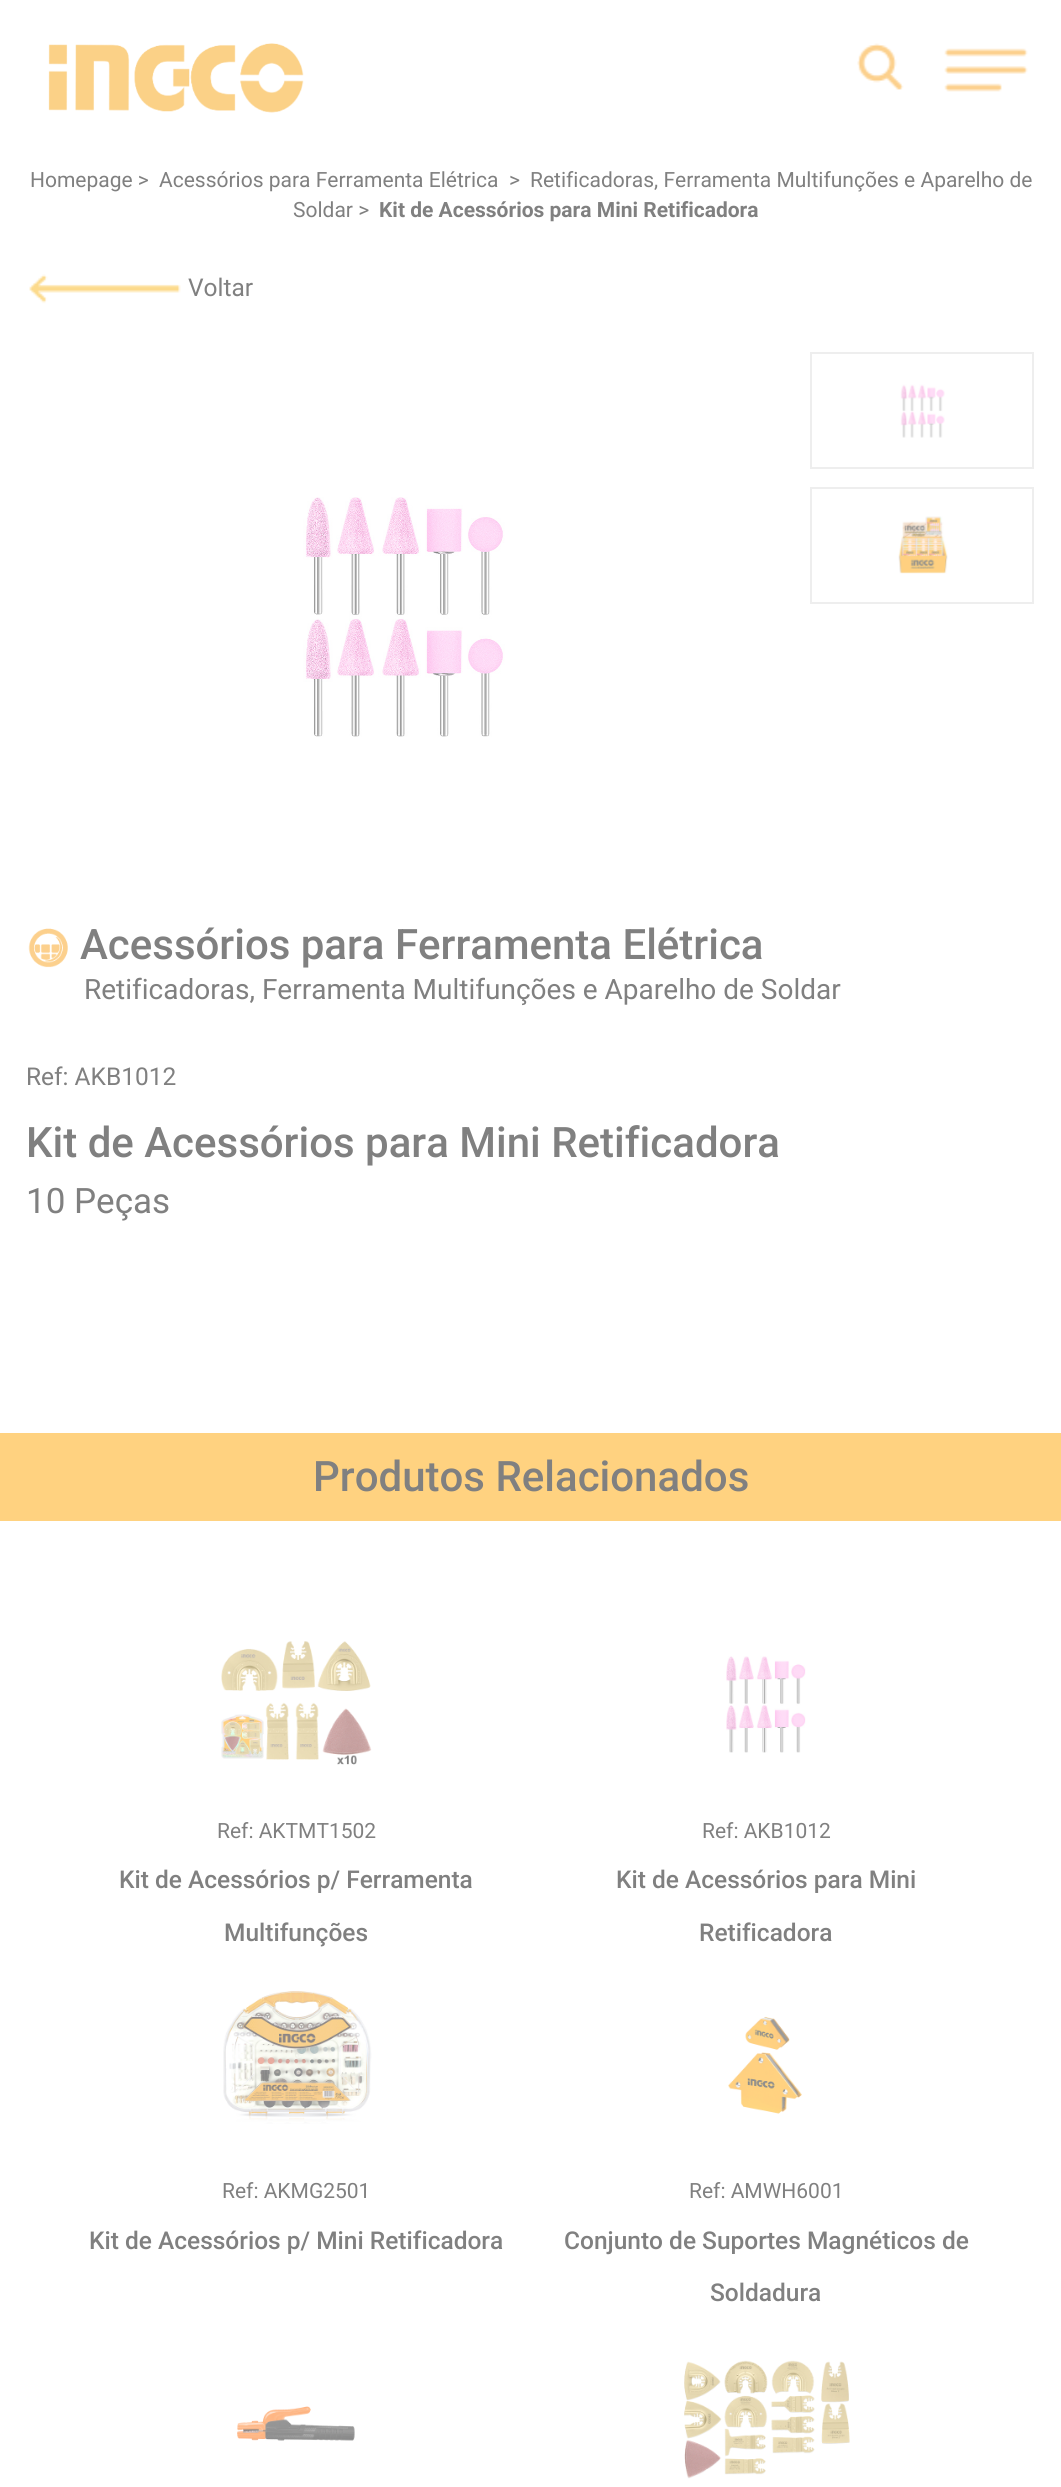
#include <cairo.h>
#include <math.h>
#include <stddef.h>

static cairo_t *ctx;

static void use_color(int r, int g, int b) {
    cairo_set_source_rgb(ctx, r / 255.0, g / 255.0, b / 255.0);
}

static void picture(const char *path, double x, double y, double w, double h) {
    cairo_surface_t *image = cairo_image_surface_create_from_png(path);
    cairo_save(ctx);
    cairo_set_source_surface(ctx, image, x, y);
    cairo_rectangle(ctx, x, y, w, h);
    cairo_fill(ctx);
    cairo_restore(ctx);
    cairo_surface_destroy(image);
}

int main(void) {
    cairo_surface_t *surface = cairo_image_surface_create(CAIRO_FORMAT_RGB24, 1061, 2487);
    ctx = cairo_create(surface);
    cairo_font_options_t *options = cairo_font_options_create();
    cairo_font_options_set_hint_metrics(options, CAIRO_HINT_METRICS_OFF);
    cairo_font_options_set_hint_style(options, CAIRO_HINT_STYLE_NONE);
    cairo_set_font_options(ctx, options);
    cairo_set_miter_limit(ctx, 4);
    use_color(255, 255, 255);
    cairo_paint(ctx);
    picture("img1.png", 48, 43, 256, 70);
    picture("img2.png", 857, 43, 47, 47);
    picture("img3.png", 944, 48, 84, 44);
    cairo_select_font_face(ctx, "Roboto", CAIRO_FONT_SLANT_NORMAL, CAIRO_FONT_WEIGHT_NORMAL);
    cairo_set_font_size(ctx, 21);
    use_color(128, 128, 128);
    cairo_move_to(ctx, 30, 187);
    cairo_show_text(ctx, "Homepage >");
    cairo_move_to(ctx, 159, 187);
    cairo_show_text(ctx, "Acessórios para Ferramenta Elétrica");
    cairo_move_to(ctx, 509, 187);
    cairo_show_text(ctx, ">");
    cairo_move_to(ctx, 530, 187);
    cairo_show_text(ctx, "Retificadoras, Ferramenta Multifunções e Aparelho de");
    cairo_move_to(ctx, 293, 217);
    cairo_show_text(ctx, "Soldar >");
    cairo_select_font_face(ctx, "Roboto", CAIRO_FONT_SLANT_NORMAL, CAIRO_FONT_WEIGHT_BOLD);
    cairo_move_to(ctx, 379, 217);
    cairo_show_text(ctx, "Kit de Acessórios para Mini Retificadora");
    picture("img4.png", 29, 274, 152, 30);
    cairo_select_font_face(ctx, "Roboto", CAIRO_FONT_SLANT_NORMAL, CAIRO_FONT_WEIGHT_NORMAL);
    cairo_set_font_size(ctx, 24.5);
    cairo_move_to(ctx, 188, 296);
    cairo_show_text(ctx, "Voltar");
    picture("img5.png", 303, 497, 202, 240);
    picture("img6.png", 900, 384, 45, 54);
    cairo_rectangle(ctx, 811, 353, 222, 115);
    use_color(238, 238, 238);
    cairo_stroke(ctx);
    picture("img7.png", 898, 516, 50, 58);
    cairo_rectangle(ctx, 811, 488, 222, 115);
    cairo_stroke(ctx);
    picture("img8.png", 28, 928, 40, 40);
    cairo_select_font_face(ctx, "Roboto Medium", CAIRO_FONT_SLANT_NORMAL, CAIRO_FONT_WEIGHT_NORMAL);
    cairo_set_font_size(ctx, 42);
    use_color(128, 128, 128);
    cairo_move_to(ctx, 80, 959);
    cairo_show_text(ctx, "Acessórios para Ferramenta Elétrica");
    cairo_select_font_face(ctx, "Roboto", CAIRO_FONT_SLANT_NORMAL, CAIRO_FONT_WEIGHT_NORMAL);
    cairo_set_font_size(ctx, 28);
    cairo_move_to(ctx, 84, 999);
    cairo_show_text(ctx, "Retificadoras, Ferramenta Multifunções e Aparelho de Soldar");
    cairo_set_font_size(ctx, 24.5);
    cairo_move_to(ctx, 26, 1085);
    cairo_show_text(ctx, "Ref: AKB1012");
    cairo_select_font_face(ctx, "Roboto Medium", CAIRO_FONT_SLANT_NORMAL, CAIRO_FONT_WEIGHT_NORMAL);
    cairo_set_font_size(ctx, 42);
    cairo_move_to(ctx, 26, 1157);
    cairo_show_text(ctx, "Kit de Acessórios para Mini Retificadora");
    cairo_select_font_face(ctx, "Roboto", CAIRO_FONT_SLANT_NORMAL, CAIRO_FONT_WEIGHT_NORMAL);
    cairo_set_font_size(ctx, 35);
    cairo_move_to(ctx, 26, 1213);
    cairo_show_text(ctx, "10 Peças");
    use_color(255, 210, 128);
    cairo_rectangle(ctx, 0, 1433, 1061, 88);
    cairo_fill(ctx);
    cairo_select_font_face(ctx, "Roboto Medium", CAIRO_FONT_SLANT_NORMAL, CAIRO_FONT_WEIGHT_NORMAL);
    cairo_set_font_size(ctx, 42);
    use_color(128, 128, 128);
    cairo_move_to(ctx, 313, 1491);
    cairo_show_text(ctx, "Produtos Relacionados");
    picture("img9.png", 221, 1641, 151, 124);
    cairo_select_font_face(ctx, "Roboto", CAIRO_FONT_SLANT_NORMAL, CAIRO_FONT_WEIGHT_NORMAL);
    cairo_set_font_size(ctx, 21);
    cairo_move_to(ctx, 217, 1838);
    cairo_show_text(ctx, "Ref: AKTMT1502");
    cairo_select_font_face(ctx, "Roboto Medium", CAIRO_FONT_SLANT_NORMAL, CAIRO_FONT_WEIGHT_NORMAL);
    cairo_set_font_size(ctx, 24.5);
    cairo_move_to(ctx, 119, 1888);
    cairo_show_text(ctx, "Kit de Acessórios p/ Ferramenta");
    cairo_move_to(ctx, 224, 1941);
    cairo_show_text(ctx, "Multifunções");
    picture("img10.png", 726, 1656, 80, 97);
    cairo_select_font_face(ctx, "Roboto", CAIRO_FONT_SLANT_NORMAL, CAIRO_FONT_WEIGHT_NORMAL);
    cairo_set_font_size(ctx, 21);
    cairo_move_to(ctx, 702, 1838);
    cairo_show_text(ctx, "Ref: AKB1012");
    cairo_select_font_face(ctx, "Roboto Medium", CAIRO_FONT_SLANT_NORMAL, CAIRO_FONT_WEIGHT_NORMAL);
    cairo_set_font_size(ctx, 24.5);
    cairo_move_to(ctx, 616, 1888);
    cairo_show_text(ctx, "Kit de Acessórios para Mini");
    cairo_move_to(ctx, 699, 1941);
    cairo_show_text(ctx, "Retificadora");
    picture("img11.png", 223, 1991, 149, 133);
    cairo_select_font_face(ctx, "Roboto", CAIRO_FONT_SLANT_NORMAL, CAIRO_FONT_WEIGHT_NORMAL);
    cairo_set_font_size(ctx, 21);
    cairo_move_to(ctx, 222, 2198);
    cairo_show_text(ctx, "Ref: AKMG2501");
    cairo_select_font_face(ctx, "Roboto Medium", CAIRO_FONT_SLANT_NORMAL, CAIRO_FONT_WEIGHT_NORMAL);
    cairo_set_font_size(ctx, 24.5);
    cairo_move_to(ctx, 89, 2249);
    cairo_show_text(ctx, "Kit de Acessórios p/ Mini Retificadora");
    picture("img12.png", 728, 2016, 74, 98);
    cairo_select_font_face(ctx, "Roboto", CAIRO_FONT_SLANT_NORMAL, CAIRO_FONT_WEIGHT_NORMAL);
    cairo_set_font_size(ctx, 21);
    cairo_move_to(ctx, 689, 2198);
    cairo_show_text(ctx, "Ref: AMWH6001");
    cairo_select_font_face(ctx, "Roboto Medium", CAIRO_FONT_SLANT_NORMAL, CAIRO_FONT_WEIGHT_NORMAL);
    cairo_set_font_size(ctx, 24.5);
    cairo_move_to(ctx, 564, 2249);
    cairo_show_text(ctx, "Conjunto de Suportes Magnéticos de");
    cairo_move_to(ctx, 710, 2301);
    cairo_show_text(ctx, "Soldadura");
    picture("img13.png", 237, 2406, 118, 35);
    picture("img14.png", 684, 2360, 166, 119);
    cairo_surface_write_to_png(surface, "result.png");
    cairo_font_options_destroy(options);
    cairo_destroy(ctx);
    cairo_surface_destroy(surface);
    return 0;
}
